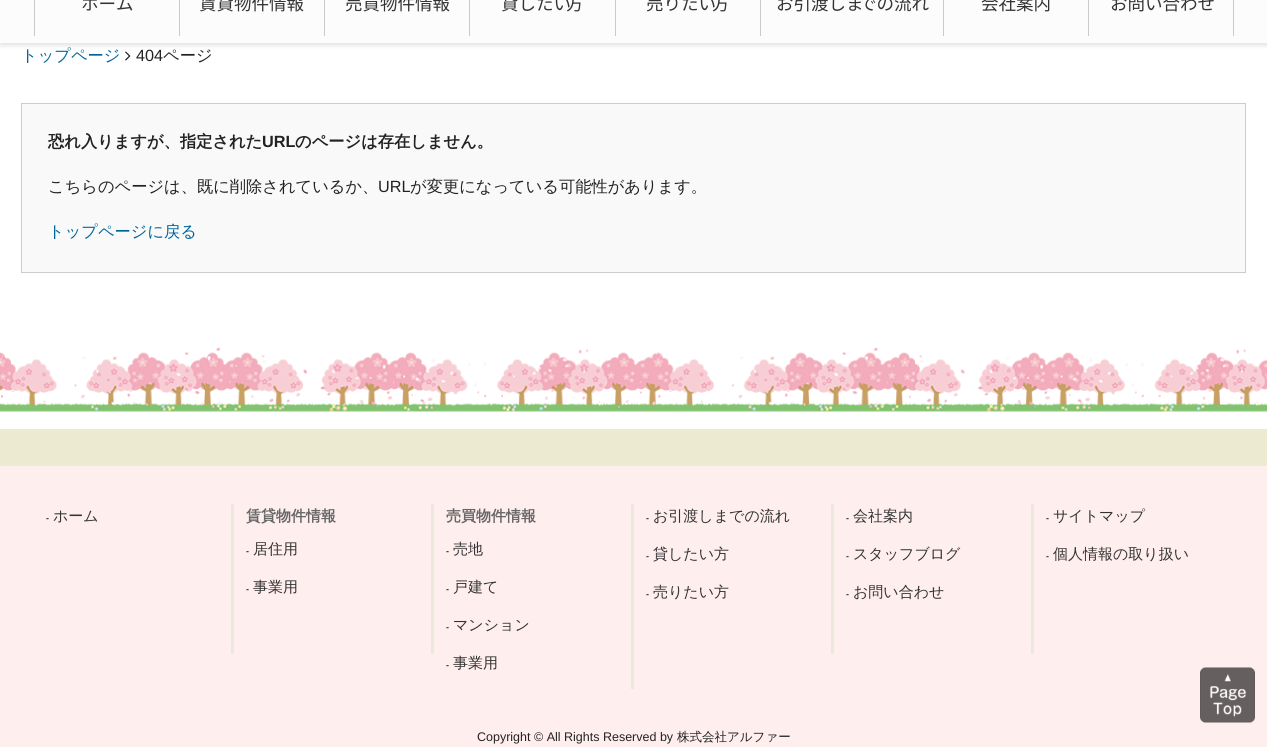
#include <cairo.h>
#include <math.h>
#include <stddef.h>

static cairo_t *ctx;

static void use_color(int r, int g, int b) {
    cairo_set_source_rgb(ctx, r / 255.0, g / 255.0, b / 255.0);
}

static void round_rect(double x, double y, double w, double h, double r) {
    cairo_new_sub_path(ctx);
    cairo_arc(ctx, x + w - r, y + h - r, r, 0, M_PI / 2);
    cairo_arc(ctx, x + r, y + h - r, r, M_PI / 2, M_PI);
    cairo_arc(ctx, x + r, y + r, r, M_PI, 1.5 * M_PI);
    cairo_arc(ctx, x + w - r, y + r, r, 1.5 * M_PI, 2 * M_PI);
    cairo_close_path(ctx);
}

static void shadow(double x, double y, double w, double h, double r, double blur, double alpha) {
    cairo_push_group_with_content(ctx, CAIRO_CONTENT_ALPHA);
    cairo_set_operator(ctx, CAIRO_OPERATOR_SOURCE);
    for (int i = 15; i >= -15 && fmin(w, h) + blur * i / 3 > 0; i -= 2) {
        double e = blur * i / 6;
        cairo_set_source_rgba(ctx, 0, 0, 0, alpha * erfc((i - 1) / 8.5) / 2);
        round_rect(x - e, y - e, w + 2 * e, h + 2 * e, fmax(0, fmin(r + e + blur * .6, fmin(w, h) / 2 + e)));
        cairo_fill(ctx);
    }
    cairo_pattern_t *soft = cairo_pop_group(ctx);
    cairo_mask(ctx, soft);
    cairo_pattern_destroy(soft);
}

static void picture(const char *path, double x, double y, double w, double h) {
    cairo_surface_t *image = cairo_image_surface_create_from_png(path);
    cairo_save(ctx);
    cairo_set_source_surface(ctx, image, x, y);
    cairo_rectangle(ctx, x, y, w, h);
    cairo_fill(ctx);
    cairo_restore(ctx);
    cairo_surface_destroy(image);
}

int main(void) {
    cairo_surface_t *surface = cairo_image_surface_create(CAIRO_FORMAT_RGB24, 1267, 747);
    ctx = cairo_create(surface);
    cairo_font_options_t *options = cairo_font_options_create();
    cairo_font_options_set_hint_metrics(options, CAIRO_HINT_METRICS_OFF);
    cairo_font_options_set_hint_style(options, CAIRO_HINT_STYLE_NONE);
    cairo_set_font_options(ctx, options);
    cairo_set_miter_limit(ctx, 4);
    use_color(255, 255, 255);
    cairo_paint(ctx);
    use_color(0, 0, 0);
    shadow(0, -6, 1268, 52, 0, 2, 0.1);
    use_color(252, 252, 252);
    cairo_rectangle(ctx, 0, 0, 1267, 43);
    cairo_fill(ctx);
    use_color(202, 202, 202);
    cairo_rectangle(ctx, 34, 0, 1, 36);
    cairo_fill(ctx);
    cairo_rectangle(ctx, 179, 0, 1, 36);
    cairo_fill(ctx);
    cairo_select_font_face(ctx, "Noto Sans JP Thin", CAIRO_FONT_SLANT_NORMAL, CAIRO_FONT_WEIGHT_NORMAL);
    cairo_set_font_size(ctx, 17.5);
    use_color(51, 51, 51);
    cairo_move_to(ctx, 81, 10);
    cairo_show_text(ctx, "ホーム");
    use_color(202, 202, 202);
    cairo_rectangle(ctx, 324, 0, 1, 36);
    cairo_fill(ctx);
    use_color(51, 51, 51);
    cairo_move_to(ctx, 199, 10);
    cairo_show_text(ctx, "賃貸物件情報");
    use_color(202, 202, 202);
    cairo_rectangle(ctx, 469, 0, 1, 36);
    cairo_fill(ctx);
    use_color(51, 51, 51);
    cairo_move_to(ctx, 345, 10);
    cairo_show_text(ctx, "売買物件情報");
    use_color(202, 202, 202);
    cairo_rectangle(ctx, 615, 0, 1, 36);
    cairo_fill(ctx);
    use_color(51, 51, 51);
    cairo_move_to(ctx, 501, 10);
    cairo_show_text(ctx, "貸したい");
    cairo_move_to(ctx, 566, 10);
    cairo_show_text(ctx, "方");
    use_color(202, 202, 202);
    cairo_rectangle(ctx, 760, 0, 1, 36);
    cairo_fill(ctx);
    use_color(51, 51, 51);
    cairo_move_to(ctx, 646, 10);
    cairo_show_text(ctx, "売りたい");
    cairo_move_to(ctx, 712, 10);
    cairo_show_text(ctx, "方");
    use_color(202, 202, 202);
    cairo_rectangle(ctx, 943, 0, 1, 36);
    cairo_fill(ctx);
    use_color(51, 51, 51);
    cairo_move_to(ctx, 776, 10);
    cairo_show_text(ctx, "お引渡しま");
    cairo_move_to(ctx, 859, 10);
    cairo_show_text(ctx, "での流れ");
    use_color(202, 202, 202);
    cairo_rectangle(ctx, 1088, 0, 1, 36);
    cairo_fill(ctx);
    use_color(51, 51, 51);
    cairo_move_to(ctx, 981, 10);
    cairo_show_text(ctx, "会社案内");
    use_color(202, 202, 202);
    cairo_rectangle(ctx, 1233, 0, 1, 36);
    cairo_fill(ctx);
    use_color(51, 51, 51);
    cairo_move_to(ctx, 1110, 10);
    cairo_show_text(ctx, "お問い合わせ");
    cairo_select_font_face(ctx, "WenQuanYi Zen Hei Medium", CAIRO_FONT_SLANT_NORMAL, CAIRO_FONT_WEIGHT_NORMAL);
    cairo_set_font_size(ctx, 16.25);
    use_color(0, 102, 153);
    cairo_move_to(ctx, 21, 61);
    cairo_show_text(ctx, "トップページ");
    picture("img1.png", 125, 51, 6, 10);
    cairo_select_font_face(ctx, "Liberation Sans", CAIRO_FONT_SLANT_NORMAL, CAIRO_FONT_WEIGHT_NORMAL);
    use_color(34, 34, 34);
    cairo_move_to(ctx, 136, 61);
    cairo_show_text(ctx, "404");
    cairo_select_font_face(ctx, "WenQuanYi Zen Hei Medium", CAIRO_FONT_SLANT_NORMAL, CAIRO_FONT_WEIGHT_NORMAL);
    cairo_move_to(ctx, 163, 61);
    cairo_show_text(ctx, "ページ");
    use_color(249, 249, 249);
    cairo_rectangle(ctx, 21.5, 103.5, 1224, 169);
    cairo_fill_preserve(ctx);
    use_color(204, 204, 204);
    cairo_set_line_width(ctx, 1);
    cairo_stroke(ctx);
    cairo_select_font_face(ctx, "WenQuanYi Zen Hei", CAIRO_FONT_SLANT_NORMAL, CAIRO_FONT_WEIGHT_BOLD);
    use_color(34, 34, 34);
    cairo_move_to(ctx, 48, 147);
    cairo_show_text(ctx, "恐れ入りますが、指定された");
    cairo_select_font_face(ctx, "Liberation Sans", CAIRO_FONT_SLANT_NORMAL, CAIRO_FONT_WEIGHT_BOLD);
    cairo_move_to(ctx, 262, 147);
    cairo_show_text(ctx, "URL");
    cairo_select_font_face(ctx, "WenQuanYi Zen Hei", CAIRO_FONT_SLANT_NORMAL, CAIRO_FONT_WEIGHT_BOLD);
    cairo_move_to(ctx, 295, 147);
    cairo_show_text(ctx, "のページは存在しません。");
    cairo_select_font_face(ctx, "WenQuanYi Zen Hei Medium", CAIRO_FONT_SLANT_NORMAL, CAIRO_FONT_WEIGHT_NORMAL);
    cairo_move_to(ctx, 48, 192);
    cairo_show_text(ctx, "こちらのページは、既に削除されているか、");
    cairo_select_font_face(ctx, "Liberation Sans", CAIRO_FONT_SLANT_NORMAL, CAIRO_FONT_WEIGHT_NORMAL);
    cairo_move_to(ctx, 378, 192);
    cairo_show_text(ctx, "URL");
    cairo_select_font_face(ctx, "WenQuanYi Zen Hei Medium", CAIRO_FONT_SLANT_NORMAL, CAIRO_FONT_WEIGHT_NORMAL);
    cairo_move_to(ctx, 410, 192);
    cairo_show_text(ctx, "が変更になっている可能性があります。");
    use_color(0, 102, 153);
    cairo_move_to(ctx, 48, 237);
    cairo_show_text(ctx, "トップページに戻る");
    picture("img2.png", 0, 347, 1267, 65);
    use_color(255, 238, 238);
    cairo_rectangle(ctx, 0, 466, 1267, 281);
    cairo_fill(ctx);
    use_color(237, 234, 210);
    cairo_rectangle(ctx, 0, 429, 1267, 37);
    cairo_fill(ctx);
    use_color(236, 233, 220);
    cairo_rectangle(ctx, 231, 504, 3, 150);
    cairo_fill(ctx);
    cairo_select_font_face(ctx, "Liberation Sans", CAIRO_FONT_SLANT_NORMAL, CAIRO_FONT_WEIGHT_BOLD);
    cairo_set_font_size(ctx, 9);
    use_color(51, 51, 51);
    cairo_move_to(ctx, 46, 521);
    cairo_show_text(ctx, "-");
    cairo_select_font_face(ctx, "WenQuanYi Zen Hei Medium", CAIRO_FONT_SLANT_NORMAL, CAIRO_FONT_WEIGHT_NORMAL);
    cairo_set_font_size(ctx, 15);
    cairo_move_to(ctx, 53, 521);
    cairo_show_text(ctx, "ホーム");
    use_color(236, 233, 220);
    cairo_rectangle(ctx, 431, 504, 3, 150);
    cairo_fill(ctx);
    cairo_select_font_face(ctx, "WenQuanYi Zen Hei", CAIRO_FONT_SLANT_NORMAL, CAIRO_FONT_WEIGHT_BOLD);
    use_color(102, 102, 102);
    cairo_move_to(ctx, 246, 521);
    cairo_show_text(ctx, "賃貸物件情報");
    cairo_select_font_face(ctx, "Liberation Sans", CAIRO_FONT_SLANT_NORMAL, CAIRO_FONT_WEIGHT_BOLD);
    cairo_set_font_size(ctx, 9);
    use_color(51, 51, 51);
    cairo_move_to(ctx, 246, 554);
    cairo_show_text(ctx, "-");
    cairo_select_font_face(ctx, "WenQuanYi Zen Hei Medium", CAIRO_FONT_SLANT_NORMAL, CAIRO_FONT_WEIGHT_NORMAL);
    cairo_set_font_size(ctx, 15);
    cairo_move_to(ctx, 253, 554);
    cairo_show_text(ctx, "居住用");
    cairo_select_font_face(ctx, "Liberation Sans", CAIRO_FONT_SLANT_NORMAL, CAIRO_FONT_WEIGHT_BOLD);
    cairo_set_font_size(ctx, 9);
    cairo_move_to(ctx, 246, 592);
    cairo_show_text(ctx, "-");
    cairo_select_font_face(ctx, "WenQuanYi Zen Hei Medium", CAIRO_FONT_SLANT_NORMAL, CAIRO_FONT_WEIGHT_NORMAL);
    cairo_set_font_size(ctx, 15);
    cairo_move_to(ctx, 253, 592);
    cairo_show_text(ctx, "事業用");
    use_color(236, 233, 220);
    cairo_rectangle(ctx, 631, 504, 3, 185);
    cairo_fill(ctx);
    cairo_select_font_face(ctx, "WenQuanYi Zen Hei", CAIRO_FONT_SLANT_NORMAL, CAIRO_FONT_WEIGHT_BOLD);
    use_color(102, 102, 102);
    cairo_move_to(ctx, 446, 521);
    cairo_show_text(ctx, "売買物件情報");
    cairo_select_font_face(ctx, "Liberation Sans", CAIRO_FONT_SLANT_NORMAL, CAIRO_FONT_WEIGHT_BOLD);
    cairo_set_font_size(ctx, 9);
    use_color(51, 51, 51);
    cairo_move_to(ctx, 446, 554);
    cairo_show_text(ctx, "-");
    cairo_select_font_face(ctx, "WenQuanYi Zen Hei Medium", CAIRO_FONT_SLANT_NORMAL, CAIRO_FONT_WEIGHT_NORMAL);
    cairo_set_font_size(ctx, 15);
    cairo_move_to(ctx, 453, 554);
    cairo_show_text(ctx, "売地");
    cairo_select_font_face(ctx, "Liberation Sans", CAIRO_FONT_SLANT_NORMAL, CAIRO_FONT_WEIGHT_BOLD);
    cairo_set_font_size(ctx, 9);
    cairo_move_to(ctx, 446, 592);
    cairo_show_text(ctx, "-");
    cairo_select_font_face(ctx, "WenQuanYi Zen Hei Medium", CAIRO_FONT_SLANT_NORMAL, CAIRO_FONT_WEIGHT_NORMAL);
    cairo_set_font_size(ctx, 15);
    cairo_move_to(ctx, 453, 592);
    cairo_show_text(ctx, "戸建て");
    cairo_select_font_face(ctx, "Liberation Sans", CAIRO_FONT_SLANT_NORMAL, CAIRO_FONT_WEIGHT_BOLD);
    cairo_set_font_size(ctx, 9);
    cairo_move_to(ctx, 446, 630);
    cairo_show_text(ctx, "-");
    cairo_select_font_face(ctx, "WenQuanYi Zen Hei Medium", CAIRO_FONT_SLANT_NORMAL, CAIRO_FONT_WEIGHT_NORMAL);
    cairo_set_font_size(ctx, 15);
    cairo_move_to(ctx, 453, 630);
    cairo_show_text(ctx, "マンション");
    cairo_select_font_face(ctx, "Liberation Sans", CAIRO_FONT_SLANT_NORMAL, CAIRO_FONT_WEIGHT_BOLD);
    cairo_set_font_size(ctx, 9);
    cairo_move_to(ctx, 446, 668);
    cairo_show_text(ctx, "-");
    cairo_select_font_face(ctx, "WenQuanYi Zen Hei Medium", CAIRO_FONT_SLANT_NORMAL, CAIRO_FONT_WEIGHT_NORMAL);
    cairo_set_font_size(ctx, 15);
    cairo_move_to(ctx, 453, 668);
    cairo_show_text(ctx, "事業用");
    use_color(236, 233, 220);
    cairo_rectangle(ctx, 831, 504, 3, 150);
    cairo_fill(ctx);
    cairo_select_font_face(ctx, "Liberation Sans", CAIRO_FONT_SLANT_NORMAL, CAIRO_FONT_WEIGHT_BOLD);
    cairo_set_font_size(ctx, 9);
    use_color(51, 51, 51);
    cairo_move_to(ctx, 646, 521);
    cairo_show_text(ctx, "-");
    cairo_select_font_face(ctx, "WenQuanYi Zen Hei Medium", CAIRO_FONT_SLANT_NORMAL, CAIRO_FONT_WEIGHT_NORMAL);
    cairo_set_font_size(ctx, 15);
    cairo_move_to(ctx, 653, 521);
    cairo_show_text(ctx, "お引渡しまでの流れ");
    cairo_select_font_face(ctx, "Liberation Sans", CAIRO_FONT_SLANT_NORMAL, CAIRO_FONT_WEIGHT_BOLD);
    cairo_set_font_size(ctx, 9);
    cairo_move_to(ctx, 646, 559);
    cairo_show_text(ctx, "-");
    cairo_select_font_face(ctx, "WenQuanYi Zen Hei Medium", CAIRO_FONT_SLANT_NORMAL, CAIRO_FONT_WEIGHT_NORMAL);
    cairo_set_font_size(ctx, 15);
    cairo_move_to(ctx, 653, 559);
    cairo_show_text(ctx, "貸したい方");
    cairo_select_font_face(ctx, "Liberation Sans", CAIRO_FONT_SLANT_NORMAL, CAIRO_FONT_WEIGHT_BOLD);
    cairo_set_font_size(ctx, 9);
    cairo_move_to(ctx, 646, 597);
    cairo_show_text(ctx, "-");
    cairo_select_font_face(ctx, "WenQuanYi Zen Hei Medium", CAIRO_FONT_SLANT_NORMAL, CAIRO_FONT_WEIGHT_NORMAL);
    cairo_set_font_size(ctx, 15);
    cairo_move_to(ctx, 653, 597);
    cairo_show_text(ctx, "売りたい方");
    use_color(236, 233, 220);
    cairo_rectangle(ctx, 1031, 504, 3, 150);
    cairo_fill(ctx);
    cairo_select_font_face(ctx, "Liberation Sans", CAIRO_FONT_SLANT_NORMAL, CAIRO_FONT_WEIGHT_BOLD);
    cairo_set_font_size(ctx, 9);
    use_color(51, 51, 51);
    cairo_move_to(ctx, 846, 521);
    cairo_show_text(ctx, "-");
    cairo_select_font_face(ctx, "WenQuanYi Zen Hei Medium", CAIRO_FONT_SLANT_NORMAL, CAIRO_FONT_WEIGHT_NORMAL);
    cairo_set_font_size(ctx, 15);
    cairo_move_to(ctx, 853, 521);
    cairo_show_text(ctx, "会社案内");
    cairo_select_font_face(ctx, "Liberation Sans", CAIRO_FONT_SLANT_NORMAL, CAIRO_FONT_WEIGHT_BOLD);
    cairo_set_font_size(ctx, 9);
    cairo_move_to(ctx, 846, 559);
    cairo_show_text(ctx, "-");
    cairo_select_font_face(ctx, "WenQuanYi Zen Hei Medium", CAIRO_FONT_SLANT_NORMAL, CAIRO_FONT_WEIGHT_NORMAL);
    cairo_set_font_size(ctx, 15);
    cairo_move_to(ctx, 853, 559);
    cairo_show_text(ctx, "スタッフブログ");
    cairo_select_font_face(ctx, "Liberation Sans", CAIRO_FONT_SLANT_NORMAL, CAIRO_FONT_WEIGHT_BOLD);
    cairo_set_font_size(ctx, 9);
    cairo_move_to(ctx, 846, 597);
    cairo_show_text(ctx, "-");
    cairo_select_font_face(ctx, "WenQuanYi Zen Hei Medium", CAIRO_FONT_SLANT_NORMAL, CAIRO_FONT_WEIGHT_NORMAL);
    cairo_set_font_size(ctx, 15);
    cairo_move_to(ctx, 853, 597);
    cairo_show_text(ctx, "お問い合わせ");
    cairo_select_font_face(ctx, "Liberation Sans", CAIRO_FONT_SLANT_NORMAL, CAIRO_FONT_WEIGHT_BOLD);
    cairo_set_font_size(ctx, 9);
    cairo_move_to(ctx, 1046, 521);
    cairo_show_text(ctx, "-");
    cairo_select_font_face(ctx, "WenQuanYi Zen Hei Medium", CAIRO_FONT_SLANT_NORMAL, CAIRO_FONT_WEIGHT_NORMAL);
    cairo_set_font_size(ctx, 15);
    cairo_move_to(ctx, 1053, 521);
    cairo_show_text(ctx, "サイトマップ");
    cairo_select_font_face(ctx, "Liberation Sans", CAIRO_FONT_SLANT_NORMAL, CAIRO_FONT_WEIGHT_BOLD);
    cairo_set_font_size(ctx, 9);
    cairo_move_to(ctx, 1046, 559);
    cairo_show_text(ctx, "-");
    cairo_select_font_face(ctx, "WenQuanYi Zen Hei Medium", CAIRO_FONT_SLANT_NORMAL, CAIRO_FONT_WEIGHT_NORMAL);
    cairo_set_font_size(ctx, 15);
    cairo_move_to(ctx, 1053, 559);
    cairo_show_text(ctx, "個人情報の取り扱い");
    cairo_select_font_face(ctx, "Liberation Sans", CAIRO_FONT_SLANT_NORMAL, CAIRO_FONT_WEIGHT_NORMAL);
    cairo_set_font_size(ctx, 12.5);
    use_color(34, 34, 34);
    cairo_move_to(ctx, 477, 741);
    cairo_show_text(ctx, "Copyright © All Rights Reserved by");
    cairo_select_font_face(ctx, "WenQuanYi Zen Hei Medium", CAIRO_FONT_SLANT_NORMAL, CAIRO_FONT_WEIGHT_NORMAL);
    cairo_move_to(ctx, 677, 741);
    cairo_show_text(ctx, "株式会社アルファー");
    picture("img3.png", 1200, 667, 55, 56);
    cairo_surface_write_to_png(surface, "result.png");
    cairo_font_options_destroy(options);
    cairo_destroy(ctx);
    cairo_surface_destroy(surface);
    return 0;
}
